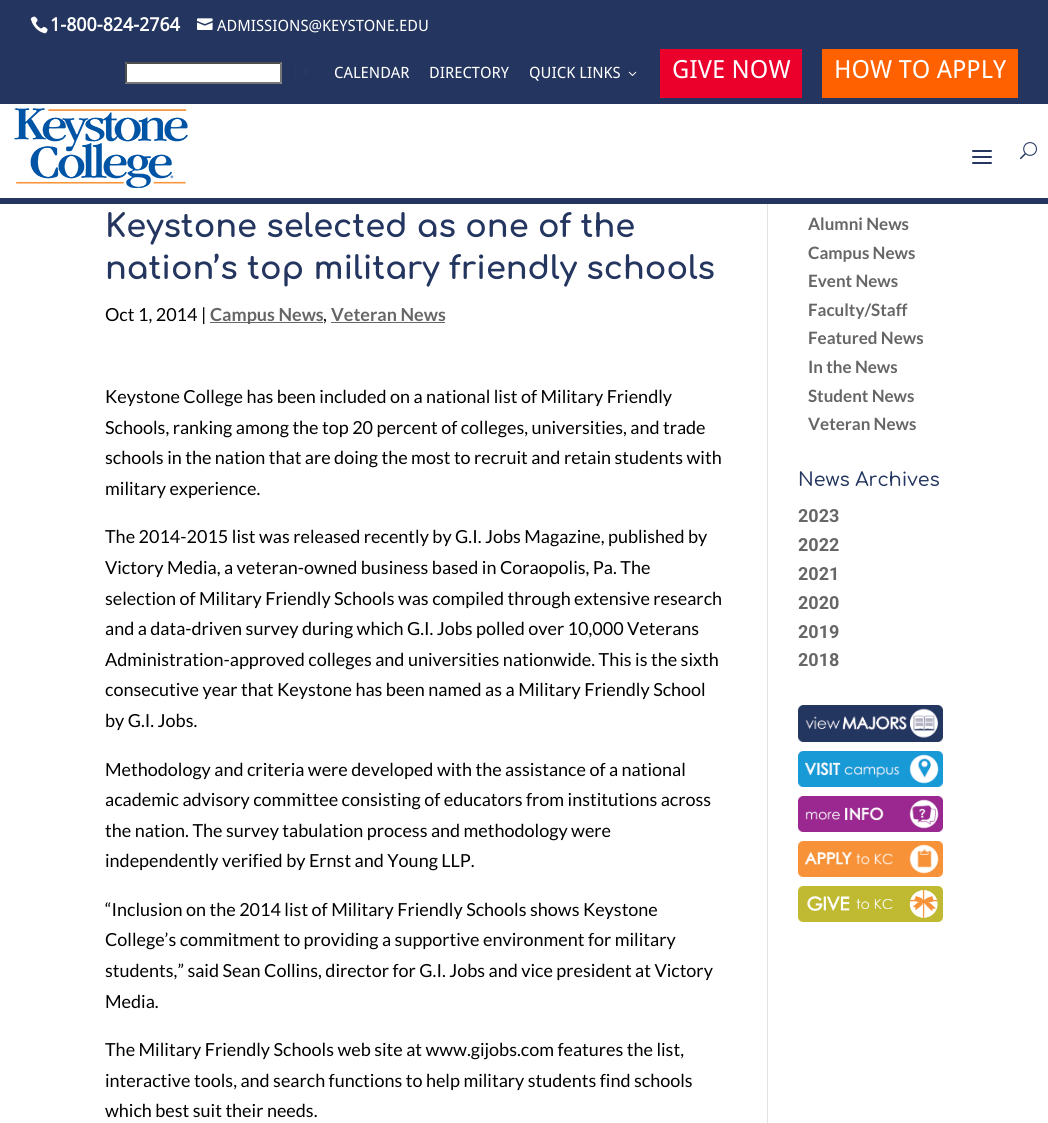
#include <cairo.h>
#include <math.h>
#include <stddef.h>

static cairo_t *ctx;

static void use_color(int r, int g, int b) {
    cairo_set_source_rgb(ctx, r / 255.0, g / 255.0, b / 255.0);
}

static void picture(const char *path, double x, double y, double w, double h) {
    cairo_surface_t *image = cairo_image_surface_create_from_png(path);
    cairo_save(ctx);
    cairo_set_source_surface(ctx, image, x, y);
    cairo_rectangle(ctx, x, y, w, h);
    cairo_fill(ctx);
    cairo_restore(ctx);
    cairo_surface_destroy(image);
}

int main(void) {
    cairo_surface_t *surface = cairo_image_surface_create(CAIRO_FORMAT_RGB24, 1048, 1123);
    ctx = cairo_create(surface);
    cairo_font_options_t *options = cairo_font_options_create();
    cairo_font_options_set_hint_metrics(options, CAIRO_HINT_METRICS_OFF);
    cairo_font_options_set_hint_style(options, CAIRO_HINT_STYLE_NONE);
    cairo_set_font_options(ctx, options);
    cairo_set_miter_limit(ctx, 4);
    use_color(255, 255, 255);
    cairo_paint(ctx);
    use_color(36, 54, 96);
    cairo_rectangle(ctx, 0, 0, 1048, 104);
    cairo_fill(ctx);
    picture("img1.png", 30, 16, 18, 18);
    cairo_select_font_face(ctx, "Droid Sans", CAIRO_FONT_SLANT_NORMAL, CAIRO_FONT_WEIGHT_BOLD);
    cairo_set_font_size(ctx, 18.5);
    use_color(255, 255, 255);
    cairo_move_to(ctx, 50, 31);
    cairo_show_text(ctx, "1-800-824-2764");
    picture("img2.png", 197, 18, 16, 12);
    cairo_select_font_face(ctx, "Droid Sans", CAIRO_FONT_SLANT_NORMAL, CAIRO_FONT_WEIGHT_NORMAL);
    cairo_set_font_size(ctx, 15.6);
    cairo_move_to(ctx, 217, 31);
    cairo_show_text(ctx, "ADMISSIONS@KEYSTONE.EDU");
    cairo_rectangle(ctx, 125, 62, 157, 22);
    cairo_fill(ctx);
    use_color(79, 79, 79);
    cairo_new_path(ctx);
    cairo_move_to(ctx, 125, 62);
    cairo_line_to(ctx, 282, 62);
    cairo_line_to(ctx, 280, 64);
    cairo_line_to(ctx, 127, 64);
    cairo_close_path(ctx);
    cairo_fill(ctx);
    use_color(118, 118, 118);
    cairo_new_path(ctx);
    cairo_move_to(ctx, 282, 62);
    cairo_line_to(ctx, 282, 84);
    cairo_line_to(ctx, 280, 82);
    cairo_line_to(ctx, 280, 64);
    cairo_close_path(ctx);
    cairo_fill(ctx);
    cairo_new_path(ctx);
    cairo_move_to(ctx, 282, 84);
    cairo_line_to(ctx, 125, 84);
    cairo_line_to(ctx, 127, 82);
    cairo_line_to(ctx, 280, 82);
    cairo_close_path(ctx);
    cairo_fill(ctx);
    use_color(79, 79, 79);
    cairo_new_path(ctx);
    cairo_move_to(ctx, 125, 84);
    cairo_line_to(ctx, 125, 62);
    cairo_line_to(ctx, 127, 64);
    cairo_line_to(ctx, 127, 82);
    cairo_close_path(ctx);
    cairo_fill(ctx);
    picture("img3.png", 295, 67, 12, 9);
    use_color(255, 255, 255);
    cairo_move_to(ctx, 334, 78);
    cairo_show_text(ctx, "CALENDAR");
    cairo_move_to(ctx, 429, 78);
    cairo_show_text(ctx, "DIRECTORY");
    cairo_move_to(ctx, 529, 78);
    cairo_show_text(ctx, "QUICK LINKS");
    picture("img4.png", 628, 71, 9, 5);
    use_color(234, 0, 42);
    cairo_rectangle(ctx, 660, 49, 142, 49);
    cairo_fill(ctx);
    cairo_set_font_size(ctx, 25);
    use_color(255, 255, 255);
    cairo_move_to(ctx, 672, 78);
    cairo_show_text(ctx, "GIVE NOW");
    use_color(255, 96, 0);
    cairo_rectangle(ctx, 822, 49, 196, 49);
    cairo_fill(ctx);
    use_color(255, 255, 255);
    cairo_move_to(ctx, 834, 78);
    cairo_show_text(ctx, "HOW TO APPLY");
    use_color(36, 54, 96);
    cairo_rectangle(ctx, 0, 198, 1048, 6);
    cairo_fill(ctx);
    picture("img5.png", 14, 108, 174, 80);
    picture("img6.png", 972, 150, 20, 14);
    picture("img7.png", 1020, 142, 17, 18);
    use_color(226, 226, 226);
    cairo_rectangle(ctx, 767, 204, 1, 919);
    cairo_fill(ctx);
    cairo_select_font_face(ctx, "Comfortaa", CAIRO_FONT_SLANT_NORMAL, CAIRO_FONT_WEIGHT_BOLD);
    cairo_set_font_size(ctx, 32);
    use_color(36, 54, 96);
    cairo_move_to(ctx, 105, 237);
    cairo_show_text(ctx, "Keystone selected as one of the");
    cairo_move_to(ctx, 105, 279);
    cairo_show_text(ctx, "nation’s top military friendly schools");
    cairo_select_font_face(ctx, "Lato", CAIRO_FONT_SLANT_NORMAL, CAIRO_FONT_WEIGHT_NORMAL);
    cairo_set_font_size(ctx, 18);
    use_color(0, 0, 0);
    cairo_move_to(ctx, 105, 321);
    cairo_show_text(ctx, "Oct 1, 2014 |");
    use_color(102, 102, 102);
    cairo_rectangle(ctx, 210, 322, 113, 1);
    cairo_fill(ctx);
    cairo_select_font_face(ctx, "Lato", CAIRO_FONT_SLANT_NORMAL, CAIRO_FONT_WEIGHT_BOLD);
    cairo_move_to(ctx, 210, 321);
    cairo_show_text(ctx, "Campus News");
    cairo_select_font_face(ctx, "Lato", CAIRO_FONT_SLANT_NORMAL, CAIRO_FONT_WEIGHT_NORMAL);
    use_color(0, 0, 0);
    cairo_move_to(ctx, 323, 321);
    cairo_show_text(ctx, ",");
    cairo_select_font_face(ctx, "Lato", CAIRO_FONT_SLANT_NORMAL, CAIRO_FONT_WEIGHT_BOLD);
    use_color(102, 102, 102);
    cairo_move_to(ctx, 331, 321);
    cairo_show_text(ctx, "Veteran News");
    cairo_rectangle(ctx, 331, 322, 114, 1);
    cairo_fill(ctx);
    cairo_select_font_face(ctx, "Lato", CAIRO_FONT_SLANT_NORMAL, CAIRO_FONT_WEIGHT_NORMAL);
    use_color(0, 0, 0);
    cairo_move_to(ctx, 105, 403);
    cairo_show_text(ctx, "Keystone College has been included on a national list of Military Friendly");
    cairo_move_to(ctx, 105, 434);
    cairo_show_text(ctx, "Schools, ranking among the top 20 percent of colleges, universities, and trade");
    cairo_move_to(ctx, 105, 464);
    cairo_show_text(ctx, "schools in the nation that are doing the most to recruit and retain students with");
    cairo_move_to(ctx, 105, 495);
    cairo_show_text(ctx, "military experience.");
    cairo_move_to(ctx, 105, 543);
    cairo_show_text(ctx, "The 2014-2015 list was released recently by G.I. Jobs Magazine, published by");
    cairo_move_to(ctx, 105, 574);
    cairo_show_text(ctx, "Victory Media, a veteran-owned business based in Coraopolis, Pa. The");
    cairo_move_to(ctx, 105, 605);
    cairo_show_text(ctx, "selection of Military Friendly Schools was compiled through extensive research");
    cairo_move_to(ctx, 105, 635);
    cairo_show_text(ctx, "and a data-driven survey during which G.I. Jobs polled over 10,000 Veterans");
    cairo_move_to(ctx, 105, 666);
    cairo_show_text(ctx, "Administration-approved colleges and universities nationwide. This is the sixth");
    cairo_move_to(ctx, 105, 696);
    cairo_show_text(ctx, "consecutive year that Keystone has been named as a Military Friendly School");
    cairo_move_to(ctx, 105, 727);
    cairo_show_text(ctx, "by G.I. Jobs.");
    cairo_move_to(ctx, 105, 776);
    cairo_show_text(ctx, "Methodology and criteria were developed with the assistance of a national");
    cairo_move_to(ctx, 105, 806);
    cairo_show_text(ctx, "academic advisory committee consisting of educators from institutions across");
    cairo_move_to(ctx, 105, 837);
    cairo_show_text(ctx, "the nation. The survey tabulation process and methodology were");
    cairo_move_to(ctx, 105, 867);
    cairo_show_text(ctx, "independently verified by Ernst and Young LLP.");
    cairo_move_to(ctx, 105, 916);
    cairo_show_text(ctx, "“Inclusion on the 2014 list of Military Friendly Schools shows Keystone");
    cairo_move_to(ctx, 105, 946);
    cairo_show_text(ctx, "College’s commitment to providing a supportive environment for military");
    cairo_move_to(ctx, 105, 977);
    cairo_show_text(ctx, "students,” said Sean Collins, director for G.I. Jobs and vice president at Victory");
    cairo_move_to(ctx, 105, 1008);
    cairo_show_text(ctx, "Media.");
    cairo_move_to(ctx, 105, 1056);
    cairo_show_text(ctx, "The Military Friendly Schools web site at www.gijobs.com features the list,");
    cairo_move_to(ctx, 105, 1087);
    cairo_show_text(ctx, "interactive tools, and search functions to help military students find schools");
    cairo_move_to(ctx, 105, 1117);
    cairo_show_text(ctx, "which best suit their needs.");
    cairo_select_font_face(ctx, "Lato", CAIRO_FONT_SLANT_NORMAL, CAIRO_FONT_WEIGHT_BOLD);
    cairo_set_font_size(ctx, 17);
    use_color(102, 102, 102);
    cairo_move_to(ctx, 808, 230);
    cairo_show_text(ctx, "Alumni News");
    cairo_move_to(ctx, 808, 259);
    cairo_show_text(ctx, "Campus News");
    cairo_move_to(ctx, 808, 287);
    cairo_show_text(ctx, "Event News");
    cairo_move_to(ctx, 808, 316);
    cairo_show_text(ctx, "Faculty/Staff");
    cairo_move_to(ctx, 808, 344);
    cairo_show_text(ctx, "Featured News");
    cairo_move_to(ctx, 808, 373);
    cairo_show_text(ctx, "In the News");
    cairo_move_to(ctx, 808, 402);
    cairo_show_text(ctx, "Student News");
    cairo_move_to(ctx, 808, 430);
    cairo_show_text(ctx, "Veteran News");
    cairo_select_font_face(ctx, "Comfortaa Medium", CAIRO_FONT_SLANT_NORMAL, CAIRO_FONT_WEIGHT_NORMAL);
    cairo_set_font_size(ctx, 19);
    use_color(36, 54, 96);
    cairo_move_to(ctx, 798, 486);
    cairo_show_text(ctx, "News Archives");
    cairo_select_font_face(ctx, "Roboto", CAIRO_FONT_SLANT_NORMAL, CAIRO_FONT_WEIGHT_BOLD);
    cairo_set_font_size(ctx, 18);
    use_color(102, 102, 102);
    cairo_move_to(ctx, 798, 522);
    cairo_show_text(ctx, "2023");
    cairo_move_to(ctx, 798, 551);
    cairo_show_text(ctx, "2022");
    cairo_move_to(ctx, 798, 580);
    cairo_show_text(ctx, "2021");
    cairo_move_to(ctx, 798, 609);
    cairo_show_text(ctx, "2020");
    cairo_move_to(ctx, 798, 638);
    cairo_show_text(ctx, "2019");
    cairo_move_to(ctx, 798, 666);
    cairo_show_text(ctx, "2018");
    picture("img8.png", 798, 705, 145, 37);
    picture("img9.png", 798, 751, 145, 36);
    picture("img10.png", 798, 796, 145, 36);
    picture("img11.png", 798, 841, 145, 36);
    picture("img12.png", 798, 886, 145, 36);
    cairo_surface_write_to_png(surface, "result.png");
    cairo_font_options_destroy(options);
    cairo_destroy(ctx);
    cairo_surface_destroy(surface);
    return 0;
}
